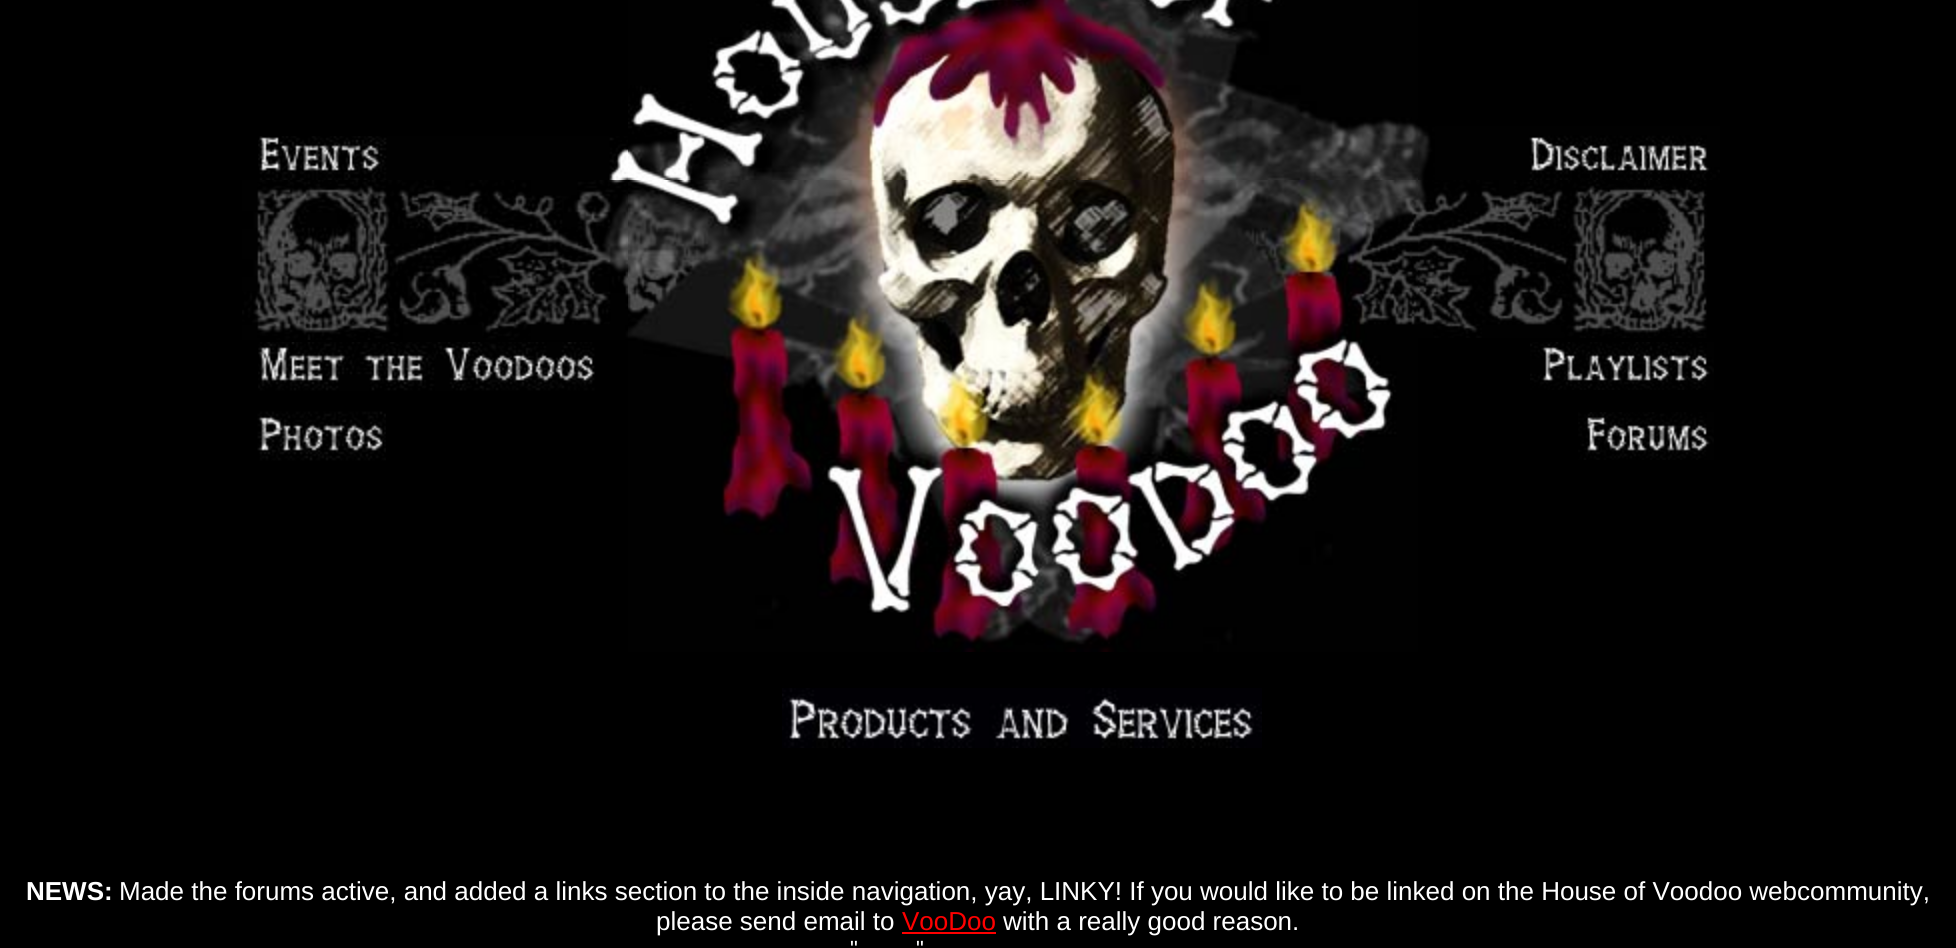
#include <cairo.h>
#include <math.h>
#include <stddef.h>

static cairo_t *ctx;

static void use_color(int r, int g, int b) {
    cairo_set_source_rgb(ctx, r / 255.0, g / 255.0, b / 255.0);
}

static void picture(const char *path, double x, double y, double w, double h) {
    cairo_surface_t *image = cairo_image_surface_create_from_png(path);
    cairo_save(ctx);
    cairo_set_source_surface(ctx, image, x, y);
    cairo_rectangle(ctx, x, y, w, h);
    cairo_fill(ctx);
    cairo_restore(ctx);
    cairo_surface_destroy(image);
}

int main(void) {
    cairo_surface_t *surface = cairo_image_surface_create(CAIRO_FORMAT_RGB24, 1956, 948);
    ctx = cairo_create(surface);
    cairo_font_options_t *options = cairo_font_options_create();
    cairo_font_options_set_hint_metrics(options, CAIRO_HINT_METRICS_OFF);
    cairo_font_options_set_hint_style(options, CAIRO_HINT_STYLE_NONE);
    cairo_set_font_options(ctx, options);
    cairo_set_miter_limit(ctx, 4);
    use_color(0, 0, 0);
    cairo_paint(ctx);
    picture("img1.png", 258, 136, 370, 44);
    picture("img2.png", 628, 0, 790, 180);
    picture("img3.png", 1418, 126, 302, 54);
    picture("img4.png", 242, 180, 386, 160);
    picture("img5.png", 258, 342, 337, 49);
    picture("img6.png", 257, 411, 129, 50);
    picture("img7.png", 628, 180, 790, 472);
    picture("img8.png", 782, 688, 480, 60);
    picture("img9.png", 1418, 180, 289, 158);
    picture("img10.png", 1530, 342, 184, 48);
    picture("img11.png", 1578, 412, 136, 48);
    cairo_select_font_face(ctx, "Liberation Sans", CAIRO_FONT_SLANT_NORMAL, CAIRO_FONT_WEIGHT_BOLD);
    cairo_set_font_size(ctx, 26);
    use_color(255, 255, 255);
    cairo_move_to(ctx, 26, 900);
    cairo_show_text(ctx, "NEWS:");
    cairo_select_font_face(ctx, "Liberation Sans", CAIRO_FONT_SLANT_NORMAL, CAIRO_FONT_WEIGHT_NORMAL);
    cairo_move_to(ctx, 119, 900);
    cairo_show_text(ctx, "Made the forums active, and added a links section to the inside navigation, yay, LINKY! If you would like to be linked on the House of Voodoo webcommunity,");
    cairo_move_to(ctx, 656, 930);
    cairo_show_text(ctx, "please send email to");
    use_color(255, 0, 0);
    cairo_move_to(ctx, 902, 930);
    cairo_show_text(ctx, "VooDoo");
    cairo_rectangle(ctx, 902, 932, 94, 2);
    cairo_fill(ctx);
    use_color(255, 255, 255);
    cairo_move_to(ctx, 1003, 930);
    cairo_show_text(ctx, "with a really good reason.");
    cairo_set_font_size(ctx, 22);
    cairo_move_to(ctx, 850, 956);
    cairo_show_text(ctx, "\"");
    cairo_move_to(ctx, 916, 956);
    cairo_show_text(ctx, "\"");
    cairo_surface_write_to_png(surface, "result.png");
    cairo_font_options_destroy(options);
    cairo_destroy(ctx);
    cairo_surface_destroy(surface);
    return 0;
}
